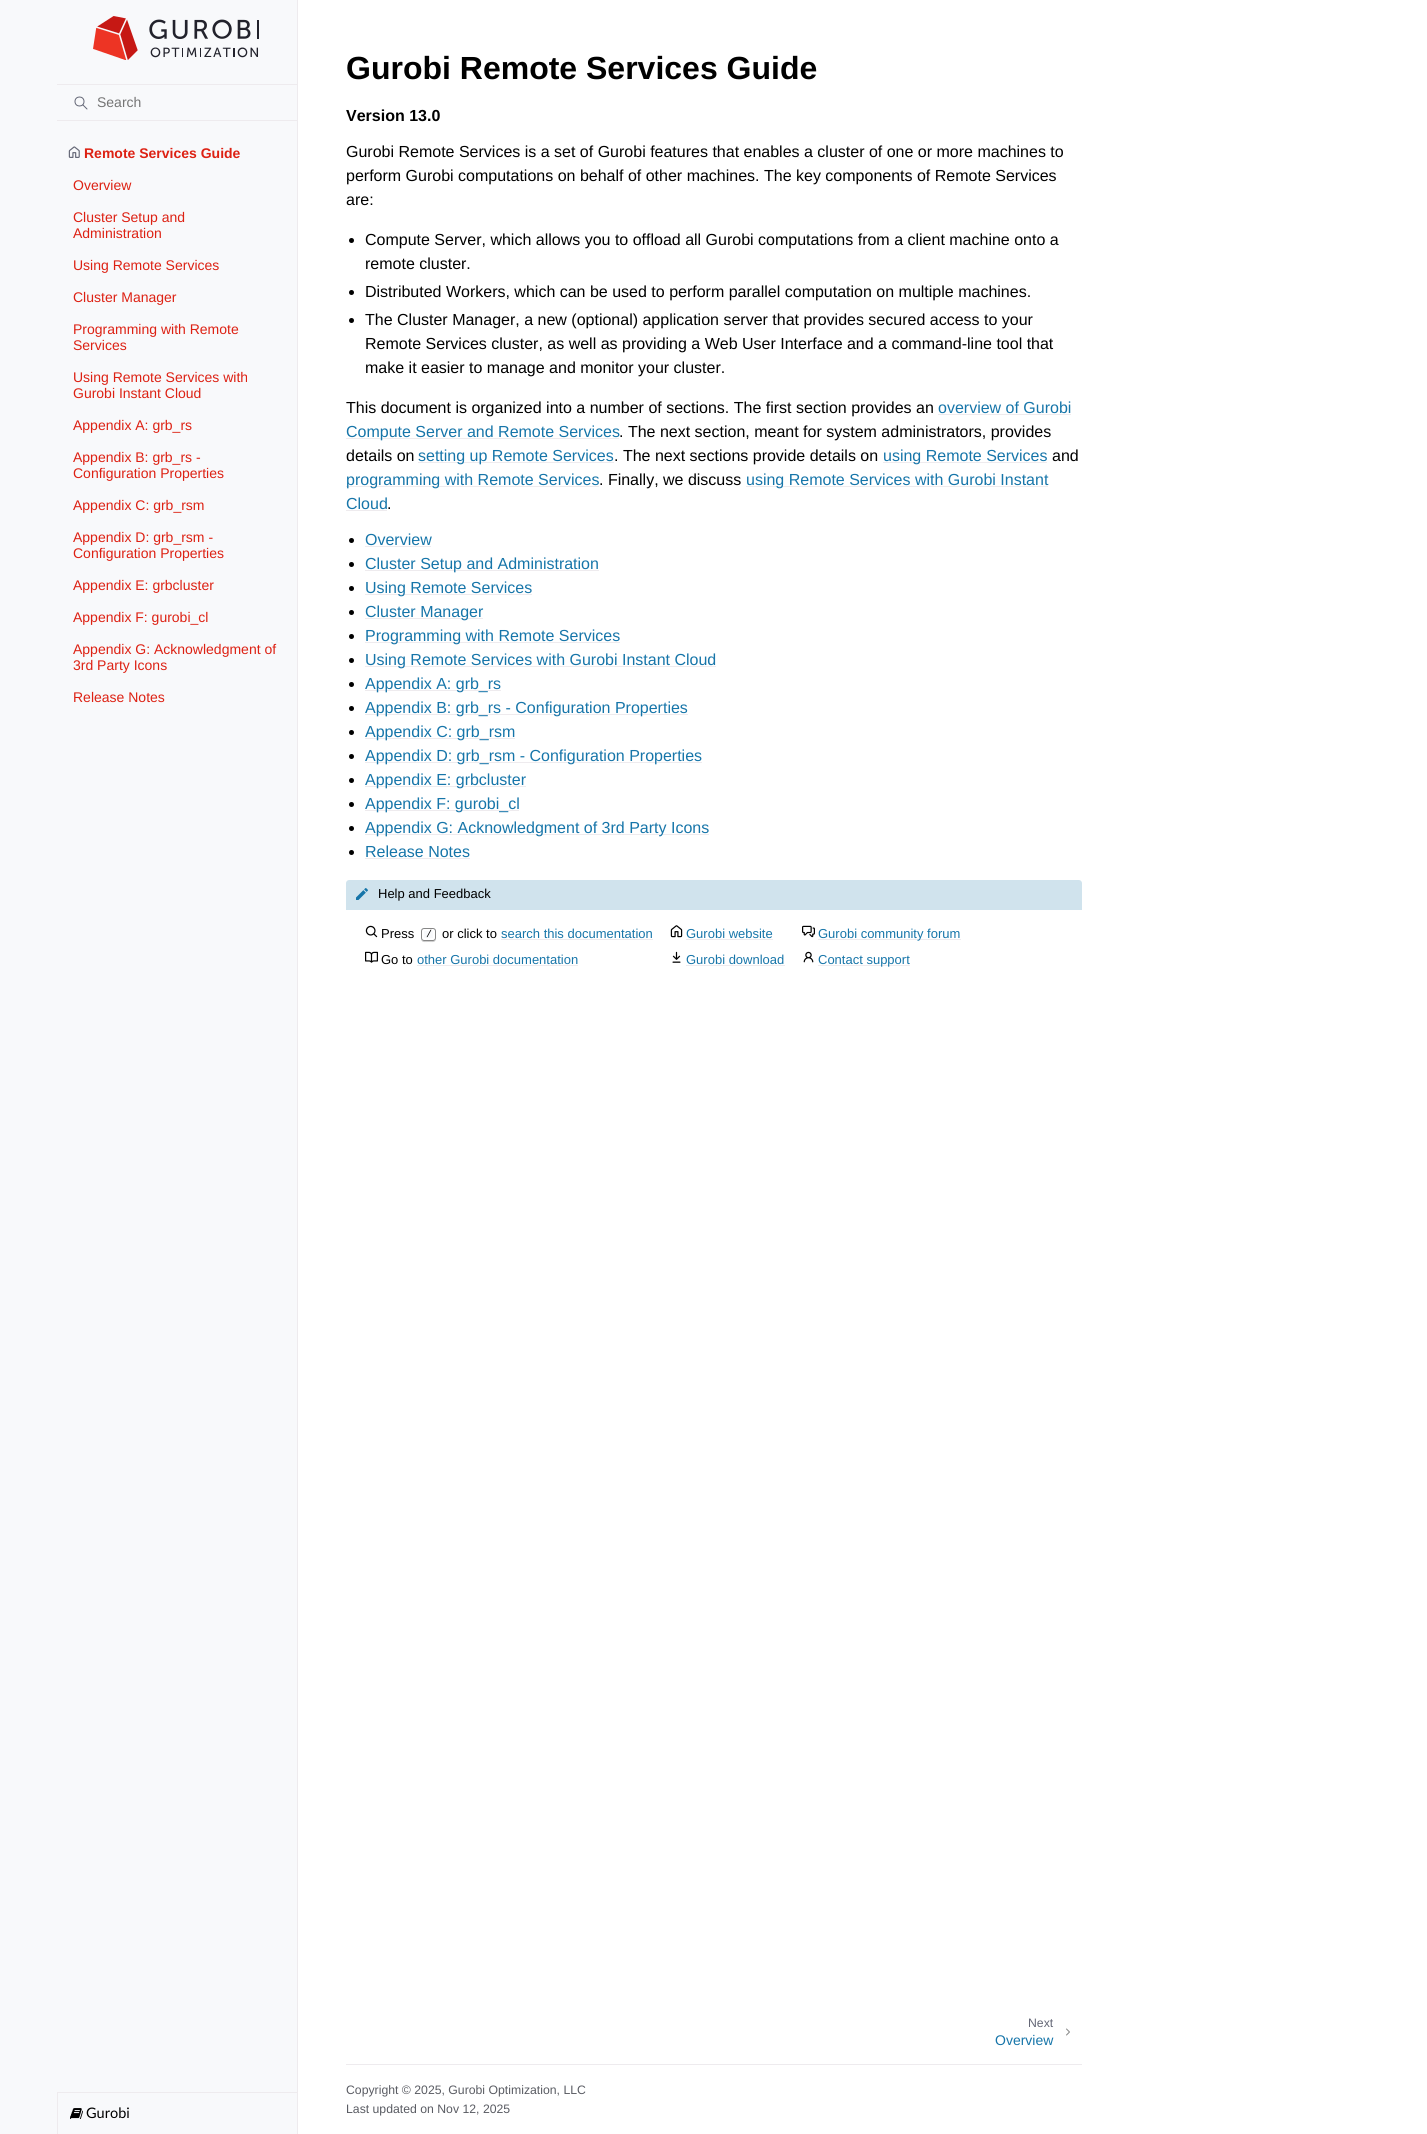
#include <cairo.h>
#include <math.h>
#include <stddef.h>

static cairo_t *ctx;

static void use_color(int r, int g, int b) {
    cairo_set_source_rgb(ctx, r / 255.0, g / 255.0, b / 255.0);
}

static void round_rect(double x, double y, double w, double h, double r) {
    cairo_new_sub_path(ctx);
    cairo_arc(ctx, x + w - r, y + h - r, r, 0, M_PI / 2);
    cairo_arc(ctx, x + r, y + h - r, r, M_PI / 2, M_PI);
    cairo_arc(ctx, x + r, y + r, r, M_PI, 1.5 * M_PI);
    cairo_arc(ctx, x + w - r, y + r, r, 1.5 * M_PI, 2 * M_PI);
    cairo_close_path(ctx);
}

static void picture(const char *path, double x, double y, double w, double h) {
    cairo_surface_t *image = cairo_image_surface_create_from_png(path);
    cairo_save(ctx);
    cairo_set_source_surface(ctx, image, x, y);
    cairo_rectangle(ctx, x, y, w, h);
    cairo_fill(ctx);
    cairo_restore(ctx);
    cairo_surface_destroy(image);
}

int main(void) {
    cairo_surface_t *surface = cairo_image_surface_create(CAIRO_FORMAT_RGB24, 1427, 2134);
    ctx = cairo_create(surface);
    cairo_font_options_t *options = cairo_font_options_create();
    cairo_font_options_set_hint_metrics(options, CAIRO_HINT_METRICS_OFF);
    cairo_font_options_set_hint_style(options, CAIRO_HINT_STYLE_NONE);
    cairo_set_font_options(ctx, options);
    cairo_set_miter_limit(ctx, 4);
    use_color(255, 255, 255);
    cairo_paint(ctx);
    use_color(248, 249, 251);
    cairo_rectangle(ctx, 0, 0, 297, 2134);
    cairo_fill(ctx);
    use_color(238, 235, 238);
    cairo_rectangle(ctx, 297, 0, 1, 2134);
    cairo_fill(ctx);
    picture("img1.png", 93, 16, 166, 44);
    cairo_arc(ctx, 79.5, 101.5, 4.5, 0, 2 * M_PI);
    use_color(100, 103, 118);
    cairo_set_line_width(ctx, 1);
    cairo_stroke(ctx);
    cairo_new_path(ctx);
    cairo_move_to(ctx, 87, 109);
    cairo_line_to(ctx, 83, 105);
    cairo_set_line_cap(ctx, CAIRO_LINE_CAP_ROUND);
    cairo_set_line_join(ctx, CAIRO_LINE_JOIN_ROUND);
    cairo_stroke(ctx);
    use_color(238, 235, 238);
    cairo_rectangle(ctx, 57, 84, 240, 1);
    cairo_fill(ctx);
    cairo_rectangle(ctx, 57, 120, 240, 1);
    cairo_fill(ctx);
    cairo_select_font_face(ctx, "Liberation Sans", CAIRO_FONT_SLANT_NORMAL, CAIRO_FONT_WEIGHT_NORMAL);
    cairo_set_font_size(ctx, 14);
    use_color(117, 117, 117);
    cairo_move_to(ctx, 97, 107);
    cairo_show_text(ctx, "Search");
    picture("img2.png", 68, 146, 12, 12);
    cairo_select_font_face(ctx, "Liberation Sans", CAIRO_FONT_SLANT_NORMAL, CAIRO_FONT_WEIGHT_BOLD);
    use_color(221, 33, 19);
    cairo_move_to(ctx, 84, 158);
    cairo_show_text(ctx, "Remote Services Guide");
    cairo_select_font_face(ctx, "Liberation Sans", CAIRO_FONT_SLANT_NORMAL, CAIRO_FONT_WEIGHT_NORMAL);
    cairo_move_to(ctx, 73, 190);
    cairo_show_text(ctx, "Overview");
    cairo_move_to(ctx, 73, 222);
    cairo_show_text(ctx, "Cluster Setup and");
    cairo_move_to(ctx, 73, 238);
    cairo_show_text(ctx, "Administration");
    cairo_move_to(ctx, 73, 270);
    cairo_show_text(ctx, "Using Remote Services");
    cairo_move_to(ctx, 73, 302);
    cairo_show_text(ctx, "Cluster Manager");
    cairo_move_to(ctx, 73, 334);
    cairo_show_text(ctx, "Programming with Remote");
    cairo_move_to(ctx, 73, 350);
    cairo_show_text(ctx, "Services");
    cairo_move_to(ctx, 73, 382);
    cairo_show_text(ctx, "Using Remote Services with");
    cairo_move_to(ctx, 73, 398);
    cairo_show_text(ctx, "Gurobi Instant Cloud");
    cairo_move_to(ctx, 73, 430);
    cairo_show_text(ctx, "Appendix A: grb_rs");
    cairo_move_to(ctx, 73, 462);
    cairo_show_text(ctx, "Appendix B: grb_rs -");
    cairo_move_to(ctx, 73, 478);
    cairo_show_text(ctx, "Configuration Properties");
    cairo_move_to(ctx, 73, 510);
    cairo_show_text(ctx, "Appendix C: grb_rsm");
    cairo_move_to(ctx, 73, 542);
    cairo_show_text(ctx, "Appendix D: grb_rsm -");
    cairo_move_to(ctx, 73, 558);
    cairo_show_text(ctx, "Configuration Properties");
    cairo_move_to(ctx, 73, 590);
    cairo_show_text(ctx, "Appendix E: grbcluster");
    cairo_move_to(ctx, 73, 622);
    cairo_show_text(ctx, "Appendix F: gurobi_cl");
    cairo_move_to(ctx, 73, 654);
    cairo_show_text(ctx, "Appendix G: Acknowledgment of");
    cairo_move_to(ctx, 73, 670);
    cairo_show_text(ctx, "3rd Party Icons");
    cairo_move_to(ctx, 73, 702);
    cairo_show_text(ctx, "Release Notes");
    use_color(238, 235, 238);
    cairo_rectangle(ctx, 57, 2092, 240, 1);
    cairo_fill(ctx);
    cairo_rectangle(ctx, 57, 2092, 1, 42);
    cairo_fill(ctx);
    picture("img3.png", 70, 2108, 13, 11);
    cairo_select_font_face(ctx, "Lato", CAIRO_FONT_SLANT_NORMAL, CAIRO_FONT_WEIGHT_NORMAL);
    cairo_set_font_size(ctx, 14.5);
    use_color(0, 0, 0);
    cairo_move_to(ctx, 86, 2118);
    cairo_show_text(ctx, "Gurobi");
    cairo_select_font_face(ctx, "Liberation Sans", CAIRO_FONT_SLANT_NORMAL, CAIRO_FONT_WEIGHT_BOLD);
    cairo_set_font_size(ctx, 32);
    cairo_move_to(ctx, 346, 79);
    cairo_show_text(ctx, "Gurobi Remote Services Guide");
    cairo_set_font_size(ctx, 16);
    cairo_move_to(ctx, 346, 121);
    cairo_show_text(ctx, "Version 13.0");
    cairo_select_font_face(ctx, "Liberation Sans", CAIRO_FONT_SLANT_NORMAL, CAIRO_FONT_WEIGHT_NORMAL);
    cairo_move_to(ctx, 346, 157);
    cairo_show_text(ctx, "Gurobi Remote Services is a set of Gurobi features that enables a cluster of one or more machines to");
    cairo_move_to(ctx, 346, 181);
    cairo_show_text(ctx, "perform Gurobi computations on behalf of other machines. The key components of Remote Services");
    cairo_move_to(ctx, 346, 205);
    cairo_show_text(ctx, "are:");
    cairo_new_path(ctx);
    cairo_arc(ctx, 351.5, 240.5, 2.5, 0, 2 * M_PI);
    cairo_fill(ctx);
    cairo_move_to(ctx, 365, 245);
    cairo_show_text(ctx, "Compute Server, which allows you to offload all Gurobi computations from a client machine onto a");
    cairo_move_to(ctx, 365, 269);
    cairo_show_text(ctx, "remote cluster.");
    cairo_new_path(ctx);
    cairo_arc(ctx, 351.5, 292.5, 2.5, 0, 2 * M_PI);
    cairo_fill(ctx);
    cairo_move_to(ctx, 365, 297);
    cairo_show_text(ctx, "Distributed Workers, which can be used to perform parallel computation on multiple machines.");
    cairo_new_path(ctx);
    cairo_arc(ctx, 351.5, 320.5, 2.5, 0, 2 * M_PI);
    cairo_fill(ctx);
    cairo_move_to(ctx, 365, 325);
    cairo_show_text(ctx, "The Cluster Manager, a new (optional) application server that provides secured access to your");
    cairo_move_to(ctx, 365, 349);
    cairo_show_text(ctx, "Remote Services cluster, as well as providing a Web User Interface and a command-line tool that");
    cairo_move_to(ctx, 365, 373);
    cairo_show_text(ctx, "make it easier to manage and monitor your cluster.");
    cairo_move_to(ctx, 346, 413);
    cairo_show_text(ctx, "This document is organized into a number of sections. The first section provides an");
    use_color(22, 117, 169);
    cairo_move_to(ctx, 938, 413);
    cairo_show_text(ctx, "overview of Gurobi");
    use_color(238, 235, 238);
    cairo_rectangle(ctx, 938, 414, 133, 1);
    cairo_fill(ctx);
    cairo_rectangle(ctx, 346, 438, 273, 1);
    cairo_fill(ctx);
    use_color(22, 117, 169);
    cairo_move_to(ctx, 346, 437);
    cairo_show_text(ctx, "Compute Server and Remote Services");
    use_color(0, 0, 0);
    cairo_move_to(ctx, 619, 437);
    cairo_show_text(ctx, ". The next section, meant for system administrators, provides");
    cairo_move_to(ctx, 346, 461);
    cairo_show_text(ctx, "details on");
    use_color(238, 235, 238);
    cairo_rectangle(ctx, 418, 462, 196, 1);
    cairo_fill(ctx);
    use_color(22, 117, 169);
    cairo_move_to(ctx, 418, 461);
    cairo_show_text(ctx, "setting up Remote Services");
    use_color(0, 0, 0);
    cairo_move_to(ctx, 614, 461);
    cairo_show_text(ctx, ". The next sections provide details on");
    use_color(238, 235, 238);
    cairo_rectangle(ctx, 883, 462, 164, 1);
    cairo_fill(ctx);
    use_color(22, 117, 169);
    cairo_move_to(ctx, 883, 461);
    cairo_show_text(ctx, "using Remote Services");
    use_color(0, 0, 0);
    cairo_move_to(ctx, 1052, 461);
    cairo_show_text(ctx, "and");
    use_color(238, 235, 238);
    cairo_rectangle(ctx, 346, 486, 253, 1);
    cairo_fill(ctx);
    use_color(22, 117, 169);
    cairo_move_to(ctx, 346, 485);
    cairo_show_text(ctx, "programming with Remote Services");
    use_color(0, 0, 0);
    cairo_move_to(ctx, 599, 485);
    cairo_show_text(ctx, ". Finally, we discuss");
    use_color(238, 235, 238);
    cairo_rectangle(ctx, 746, 486, 302, 1);
    cairo_fill(ctx);
    use_color(22, 117, 169);
    cairo_move_to(ctx, 746, 485);
    cairo_show_text(ctx, "using Remote Services with Gurobi Instant");
    cairo_move_to(ctx, 346, 509);
    cairo_show_text(ctx, "Cloud");
    use_color(238, 235, 238);
    cairo_rectangle(ctx, 346, 510, 41, 1);
    cairo_fill(ctx);
    use_color(0, 0, 0);
    cairo_move_to(ctx, 387, 509);
    cairo_show_text(ctx, ".");
    cairo_new_path(ctx);
    cairo_arc(ctx, 351.5, 540.5, 2.5, 0, 2 * M_PI);
    cairo_fill(ctx);
    use_color(22, 117, 169);
    cairo_move_to(ctx, 365, 545);
    cairo_show_text(ctx, "Overview");
    use_color(238, 235, 238);
    cairo_rectangle(ctx, 365, 546, 66, 1);
    cairo_fill(ctx);
    use_color(0, 0, 0);
    cairo_arc(ctx, 351.5, 564.5, 2.5, 0, 2 * M_PI);
    cairo_fill(ctx);
    use_color(238, 235, 238);
    cairo_rectangle(ctx, 365, 570, 234, 1);
    cairo_fill(ctx);
    use_color(22, 117, 169);
    cairo_move_to(ctx, 365, 569);
    cairo_show_text(ctx, "Cluster Setup and Administration");
    use_color(0, 0, 0);
    cairo_new_path(ctx);
    cairo_arc(ctx, 351.5, 588.5, 2.5, 0, 2 * M_PI);
    cairo_fill(ctx);
    use_color(238, 235, 238);
    cairo_rectangle(ctx, 365, 594, 167, 1);
    cairo_fill(ctx);
    use_color(22, 117, 169);
    cairo_move_to(ctx, 365, 593);
    cairo_show_text(ctx, "Using Remote Services");
    use_color(0, 0, 0);
    cairo_new_path(ctx);
    cairo_arc(ctx, 351.5, 612.5, 2.5, 0, 2 * M_PI);
    cairo_fill(ctx);
    use_color(238, 235, 238);
    cairo_rectangle(ctx, 365, 618, 118, 1);
    cairo_fill(ctx);
    use_color(22, 117, 169);
    cairo_move_to(ctx, 365, 617);
    cairo_show_text(ctx, "Cluster Manager");
    use_color(0, 0, 0);
    cairo_new_path(ctx);
    cairo_arc(ctx, 351.5, 636.5, 2.5, 0, 2 * M_PI);
    cairo_fill(ctx);
    use_color(238, 235, 238);
    cairo_rectangle(ctx, 365, 642, 255, 1);
    cairo_fill(ctx);
    use_color(22, 117, 169);
    cairo_move_to(ctx, 365, 641);
    cairo_show_text(ctx, "Programming with Remote Services");
    use_color(0, 0, 0);
    cairo_new_path(ctx);
    cairo_arc(ctx, 351.5, 660.5, 2.5, 0, 2 * M_PI);
    cairo_fill(ctx);
    use_color(238, 235, 238);
    cairo_rectangle(ctx, 365, 666, 351, 1);
    cairo_fill(ctx);
    use_color(22, 117, 169);
    cairo_move_to(ctx, 365, 665);
    cairo_show_text(ctx, "Using Remote Services with Gurobi Instant Cloud");
    use_color(0, 0, 0);
    cairo_new_path(ctx);
    cairo_arc(ctx, 351.5, 684.5, 2.5, 0, 2 * M_PI);
    cairo_fill(ctx);
    use_color(238, 235, 238);
    cairo_rectangle(ctx, 365, 690, 136, 1);
    cairo_fill(ctx);
    use_color(22, 117, 169);
    cairo_move_to(ctx, 365, 689);
    cairo_show_text(ctx, "Appendix A: grb_rs");
    use_color(0, 0, 0);
    cairo_new_path(ctx);
    cairo_arc(ctx, 351.5, 708.5, 2.5, 0, 2 * M_PI);
    cairo_fill(ctx);
    use_color(238, 235, 238);
    cairo_rectangle(ctx, 365, 714, 323, 1);
    cairo_fill(ctx);
    use_color(22, 117, 169);
    cairo_move_to(ctx, 365, 713);
    cairo_show_text(ctx, "Appendix B: grb_rs - Configuration Properties");
    use_color(0, 0, 0);
    cairo_new_path(ctx);
    cairo_arc(ctx, 351.5, 732.5, 2.5, 0, 2 * M_PI);
    cairo_fill(ctx);
    use_color(238, 235, 238);
    cairo_rectangle(ctx, 365, 738, 150, 1);
    cairo_fill(ctx);
    use_color(22, 117, 169);
    cairo_move_to(ctx, 365, 737);
    cairo_show_text(ctx, "Appendix C: grb_rsm");
    use_color(0, 0, 0);
    cairo_new_path(ctx);
    cairo_arc(ctx, 351.5, 756.5, 2.5, 0, 2 * M_PI);
    cairo_fill(ctx);
    use_color(238, 235, 238);
    cairo_rectangle(ctx, 365, 762, 337, 1);
    cairo_fill(ctx);
    use_color(22, 117, 169);
    cairo_move_to(ctx, 365, 761);
    cairo_show_text(ctx, "Appendix D: grb_rsm - Configuration Properties");
    use_color(0, 0, 0);
    cairo_new_path(ctx);
    cairo_arc(ctx, 351.5, 780.5, 2.5, 0, 2 * M_PI);
    cairo_fill(ctx);
    use_color(238, 235, 238);
    cairo_rectangle(ctx, 365, 786, 161, 1);
    cairo_fill(ctx);
    use_color(22, 117, 169);
    cairo_move_to(ctx, 365, 785);
    cairo_show_text(ctx, "Appendix E: grbcluster");
    use_color(0, 0, 0);
    cairo_new_path(ctx);
    cairo_arc(ctx, 351.5, 804.5, 2.5, 0, 2 * M_PI);
    cairo_fill(ctx);
    use_color(238, 235, 238);
    cairo_rectangle(ctx, 365, 810, 154, 1);
    cairo_fill(ctx);
    use_color(22, 117, 169);
    cairo_move_to(ctx, 365, 809);
    cairo_show_text(ctx, "Appendix F: gurobi_cl");
    use_color(0, 0, 0);
    cairo_new_path(ctx);
    cairo_arc(ctx, 351.5, 828.5, 2.5, 0, 2 * M_PI);
    cairo_fill(ctx);
    use_color(238, 235, 238);
    cairo_rectangle(ctx, 365, 834, 344, 1);
    cairo_fill(ctx);
    use_color(22, 117, 169);
    cairo_move_to(ctx, 365, 833);
    cairo_show_text(ctx, "Appendix G: Acknowledgment of 3rd Party Icons");
    use_color(0, 0, 0);
    cairo_new_path(ctx);
    cairo_arc(ctx, 351.5, 852.5, 2.5, 0, 2 * M_PI);
    cairo_fill(ctx);
    use_color(22, 117, 169);
    cairo_move_to(ctx, 365, 857);
    cairo_show_text(ctx, "Release Notes");
    use_color(238, 235, 238);
    cairo_rectangle(ctx, 365, 858, 105, 1);
    cairo_fill(ctx);
    cairo_set_source_rgba(ctx, 0.086, 0.459, 0.663, 0.2);
    cairo_new_path(ctx);
    cairo_move_to(ctx, 349, 880);
    cairo_line_to(ctx, 1079, 880);
    cairo_curve_to(ctx, 1080.5, 880, 1082, 881.5, 1082, 883);
    cairo_line_to(ctx, 1082, 910);
    cairo_line_to(ctx, 346, 910);
    cairo_line_to(ctx, 346, 883);
    cairo_curve_to(ctx, 346, 881.5, 347.5, 880, 349, 880);
    cairo_close_path(ctx);
    cairo_fill(ctx);
    picture("img4.png", 356, 888, 12, 12);
    cairo_set_font_size(ctx, 13);
    use_color(0, 0, 0);
    cairo_move_to(ctx, 378, 898);
    cairo_show_text(ctx, "Help and Feedback");
    picture("img5.png", 365, 925, 13, 13);
    cairo_move_to(ctx, 381, 938);
    cairo_show_text(ctx, "Press");
    use_color(204, 204, 204);
    cairo_new_path(ctx);
    cairo_move_to(ctx, 421, 938);
    cairo_curve_to(ctx, 421, 943, 424.5, 942, 428.5, 942);
    cairo_curve_to(ctx, 432.5, 942, 436, 943, 436, 938);
    cairo_curve_to(ctx, 436, 942, 431, 941, 428.5, 941);
    cairo_curve_to(ctx, 426, 941, 421, 942, 421, 938);
    cairo_close_path(ctx);
    cairo_fill(ctx);
    use_color(248, 249, 251);
    round_rect(421, 928, 15, 13, 3);
    cairo_fill(ctx);
    round_rect(423, 930, 11, 9, 1);
    use_color(255, 255, 255);
    cairo_set_line_width(ctx, 2);
    cairo_set_line_cap(ctx, CAIRO_LINE_CAP_BUTT);
    cairo_set_line_join(ctx, CAIRO_LINE_JOIN_MITER);
    cairo_stroke(ctx);
    round_rect(421.5, 928.5, 14, 12, 2.5);
    use_color(135, 135, 135);
    cairo_set_line_width(ctx, 1);
    cairo_stroke(ctx);
    cairo_select_font_face(ctx, "Liberation Mono", CAIRO_FONT_SLANT_NORMAL, CAIRO_FONT_WEIGHT_NORMAL);
    cairo_set_font_size(ctx, 10);
    use_color(0, 0, 0);
    cairo_move_to(ctx, 426, 937);
    cairo_show_text(ctx, "/");
    cairo_select_font_face(ctx, "Liberation Sans", CAIRO_FONT_SLANT_NORMAL, CAIRO_FONT_WEIGHT_NORMAL);
    cairo_set_font_size(ctx, 13);
    cairo_move_to(ctx, 442, 938);
    cairo_show_text(ctx, "or click to");
    use_color(22, 117, 169);
    cairo_move_to(ctx, 501, 938);
    cairo_show_text(ctx, "search this documentation");
    use_color(238, 235, 238);
    cairo_rectangle(ctx, 501, 939, 152, 1);
    cairo_fill(ctx);
    picture("img6.png", 670, 925, 13, 13);
    use_color(22, 117, 169);
    cairo_move_to(ctx, 686, 938);
    cairo_show_text(ctx, "Gurobi website");
    use_color(238, 235, 238);
    cairo_rectangle(ctx, 686, 939, 87, 1);
    cairo_fill(ctx);
    picture("img7.png", 802, 925, 13, 13);
    cairo_rectangle(ctx, 818, 939, 143, 1);
    cairo_fill(ctx);
    use_color(22, 117, 169);
    cairo_move_to(ctx, 818, 938);
    cairo_show_text(ctx, "Gurobi community forum");
    picture("img8.png", 365, 951, 13, 12);
    use_color(0, 0, 0);
    cairo_move_to(ctx, 381, 964);
    cairo_show_text(ctx, "Go to");
    use_color(22, 117, 169);
    cairo_move_to(ctx, 417, 964);
    cairo_show_text(ctx, "other Gurobi documentation");
    use_color(238, 235, 238);
    cairo_rectangle(ctx, 417, 965, 161, 1);
    cairo_fill(ctx);
    picture("img9.png", 672, 951, 9, 12);
    use_color(22, 117, 169);
    cairo_move_to(ctx, 686, 964);
    cairo_show_text(ctx, "Gurobi download");
    use_color(238, 235, 238);
    cairo_rectangle(ctx, 686, 965, 99, 1);
    cairo_fill(ctx);
    picture("img10.png", 803, 951, 11, 12);
    cairo_rectangle(ctx, 818, 965, 92, 1);
    cairo_fill(ctx);
    use_color(22, 117, 169);
    cairo_move_to(ctx, 818, 964);
    cairo_show_text(ctx, "Contact support");
    cairo_set_font_size(ctx, 12.25);
    use_color(100, 103, 118);
    cairo_move_to(ctx, 1028, 2027);
    cairo_show_text(ctx, "Next");
    cairo_set_font_size(ctx, 14);
    use_color(22, 117, 169);
    cairo_move_to(ctx, 995, 2045);
    cairo_show_text(ctx, "Overview");
    cairo_new_path(ctx);
    cairo_move_to(ctx, 1066.5, 2035);
    cairo_line_to(ctx, 1069.5, 2032);
    cairo_line_to(ctx, 1066.5, 2029);
    use_color(135, 135, 135);
    cairo_set_line_cap(ctx, CAIRO_LINE_CAP_ROUND);
    cairo_set_line_join(ctx, CAIRO_LINE_JOIN_ROUND);
    cairo_stroke(ctx);
    use_color(238, 235, 238);
    cairo_rectangle(ctx, 346, 2064, 736, 1);
    cairo_fill(ctx);
    cairo_set_font_size(ctx, 12.25);
    use_color(90, 92, 99);
    cairo_move_to(ctx, 346, 2094);
    cairo_show_text(ctx, "Copyright © 2025, Gurobi Optimization, LLC");
    cairo_move_to(ctx, 346, 2113);
    cairo_show_text(ctx, "Last updated on Nov 12, 2025");
    cairo_surface_write_to_png(surface, "result.png");
    cairo_font_options_destroy(options);
    cairo_destroy(ctx);
    cairo_surface_destroy(surface);
    return 0;
}
